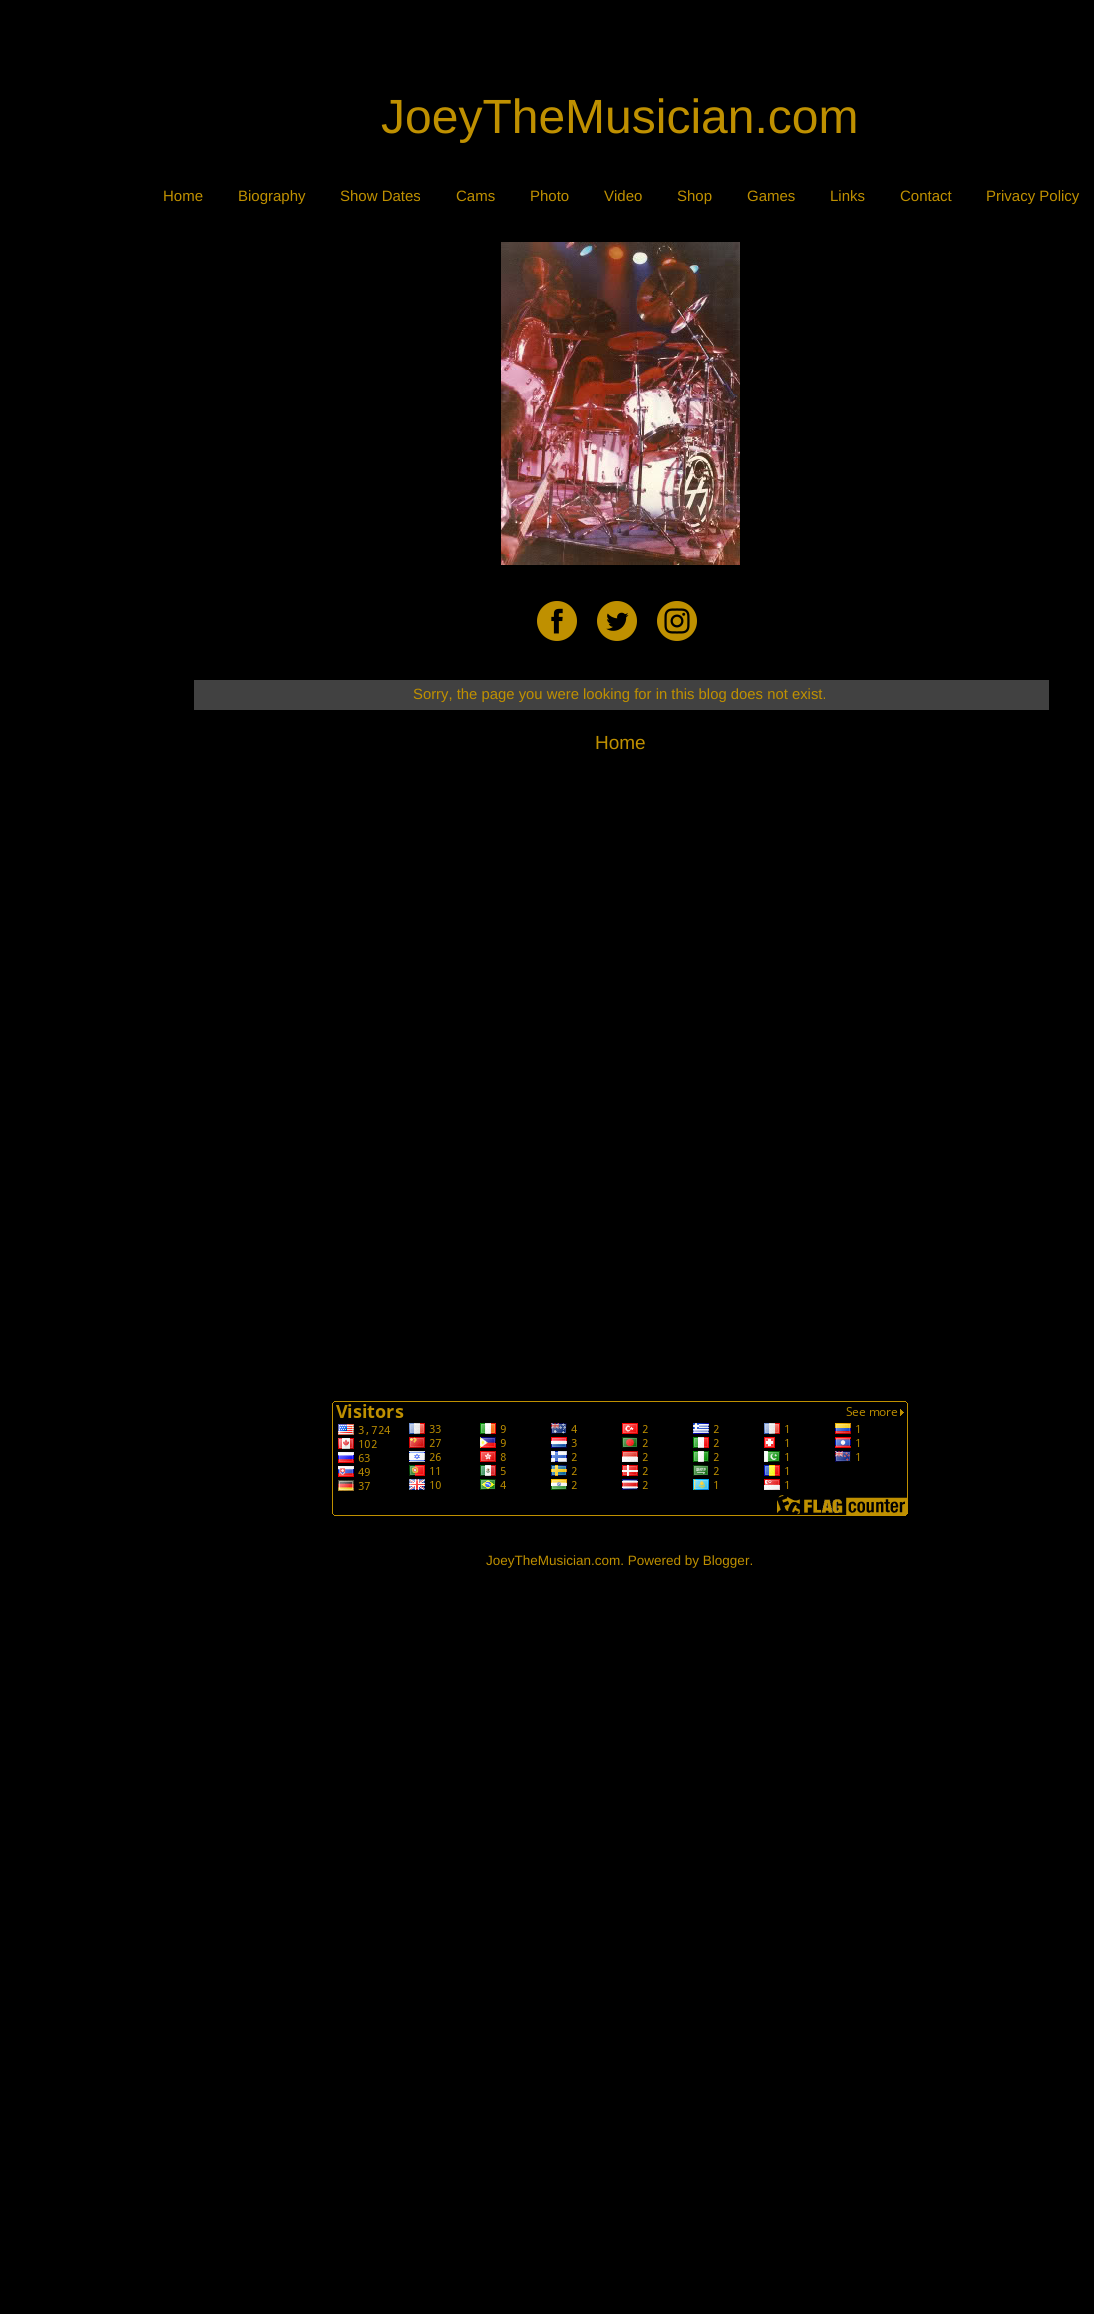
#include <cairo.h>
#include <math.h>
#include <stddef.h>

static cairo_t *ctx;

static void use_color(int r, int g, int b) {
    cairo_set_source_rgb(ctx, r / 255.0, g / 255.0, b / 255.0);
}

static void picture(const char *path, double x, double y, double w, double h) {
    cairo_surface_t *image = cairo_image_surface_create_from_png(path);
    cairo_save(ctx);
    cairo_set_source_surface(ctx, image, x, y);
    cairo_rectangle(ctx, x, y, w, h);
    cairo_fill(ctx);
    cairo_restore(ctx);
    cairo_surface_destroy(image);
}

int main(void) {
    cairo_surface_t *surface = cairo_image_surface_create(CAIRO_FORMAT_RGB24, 1094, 2314);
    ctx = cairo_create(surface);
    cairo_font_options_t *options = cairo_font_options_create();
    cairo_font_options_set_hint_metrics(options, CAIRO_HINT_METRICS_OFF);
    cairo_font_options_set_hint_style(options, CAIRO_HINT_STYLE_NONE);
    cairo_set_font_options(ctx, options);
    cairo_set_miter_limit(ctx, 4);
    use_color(0, 0, 0);
    cairo_paint(ctx);
    cairo_select_font_face(ctx, "Liberation Sans", CAIRO_FONT_SLANT_NORMAL, CAIRO_FONT_WEIGHT_NORMAL);
    cairo_set_font_size(ctx, 48);
    use_color(191, 144, 0);
    cairo_move_to(ctx, 381, 133);
    cairo_show_text(ctx, "JoeyTheMusician.com");
    cairo_set_font_size(ctx, 15);
    cairo_move_to(ctx, 163, 201);
    cairo_show_text(ctx, "Home");
    cairo_move_to(ctx, 238, 201);
    cairo_show_text(ctx, "Biography");
    cairo_move_to(ctx, 340, 201);
    cairo_show_text(ctx, "Show Dates");
    cairo_move_to(ctx, 456, 201);
    cairo_show_text(ctx, "Cams");
    cairo_move_to(ctx, 530, 201);
    cairo_show_text(ctx, "Photo");
    cairo_move_to(ctx, 604, 201);
    cairo_show_text(ctx, "Video");
    cairo_move_to(ctx, 677, 201);
    cairo_show_text(ctx, "Shop");
    cairo_move_to(ctx, 747, 201);
    cairo_show_text(ctx, "Games");
    cairo_move_to(ctx, 830, 201);
    cairo_show_text(ctx, "Links");
    cairo_move_to(ctx, 900, 201);
    cairo_show_text(ctx, "Contact");
    cairo_move_to(ctx, 986, 201);
    cairo_show_text(ctx, "Privacy Policy");
    picture("img1.png", 501, 242, 239, 323);
    cairo_arc(ctx, 557, 621, 20, 0, 2 * M_PI);
    cairo_fill(ctx);
    picture("img2.png", 551, 608, 12, 26);
    cairo_arc(ctx, 617, 621, 20, 0, 2 * M_PI);
    cairo_fill(ctx);
    picture("img3.png", 606, 612, 23, 19);
    cairo_arc(ctx, 677, 621, 20, 0, 2 * M_PI);
    cairo_fill(ctx);
    picture("img4.png", 664, 608, 26, 26);
    use_color(65, 65, 65);
    cairo_rectangle(ctx, 194, 680, 855, 30);
    cairo_fill(ctx);
    cairo_set_font_size(ctx, 14.85);
    use_color(191, 144, 0);
    cairo_move_to(ctx, 413, 699);
    cairo_show_text(ctx, "Sorry, the page you were looking for in this blog does not exist.");
    cairo_set_font_size(ctx, 19);
    cairo_move_to(ctx, 595, 749);
    cairo_show_text(ctx, "Home");
    picture("img5.png", 332, 1401, 576, 115);
    cairo_set_font_size(ctx, 13.5);
    cairo_move_to(ctx, 486, 1565);
    cairo_show_text(ctx, "JoeyTheMusician.com. Powered by Blogger.");
    cairo_surface_write_to_png(surface, "result.png");
    cairo_font_options_destroy(options);
    cairo_destroy(ctx);
    cairo_surface_destroy(surface);
    return 0;
}
